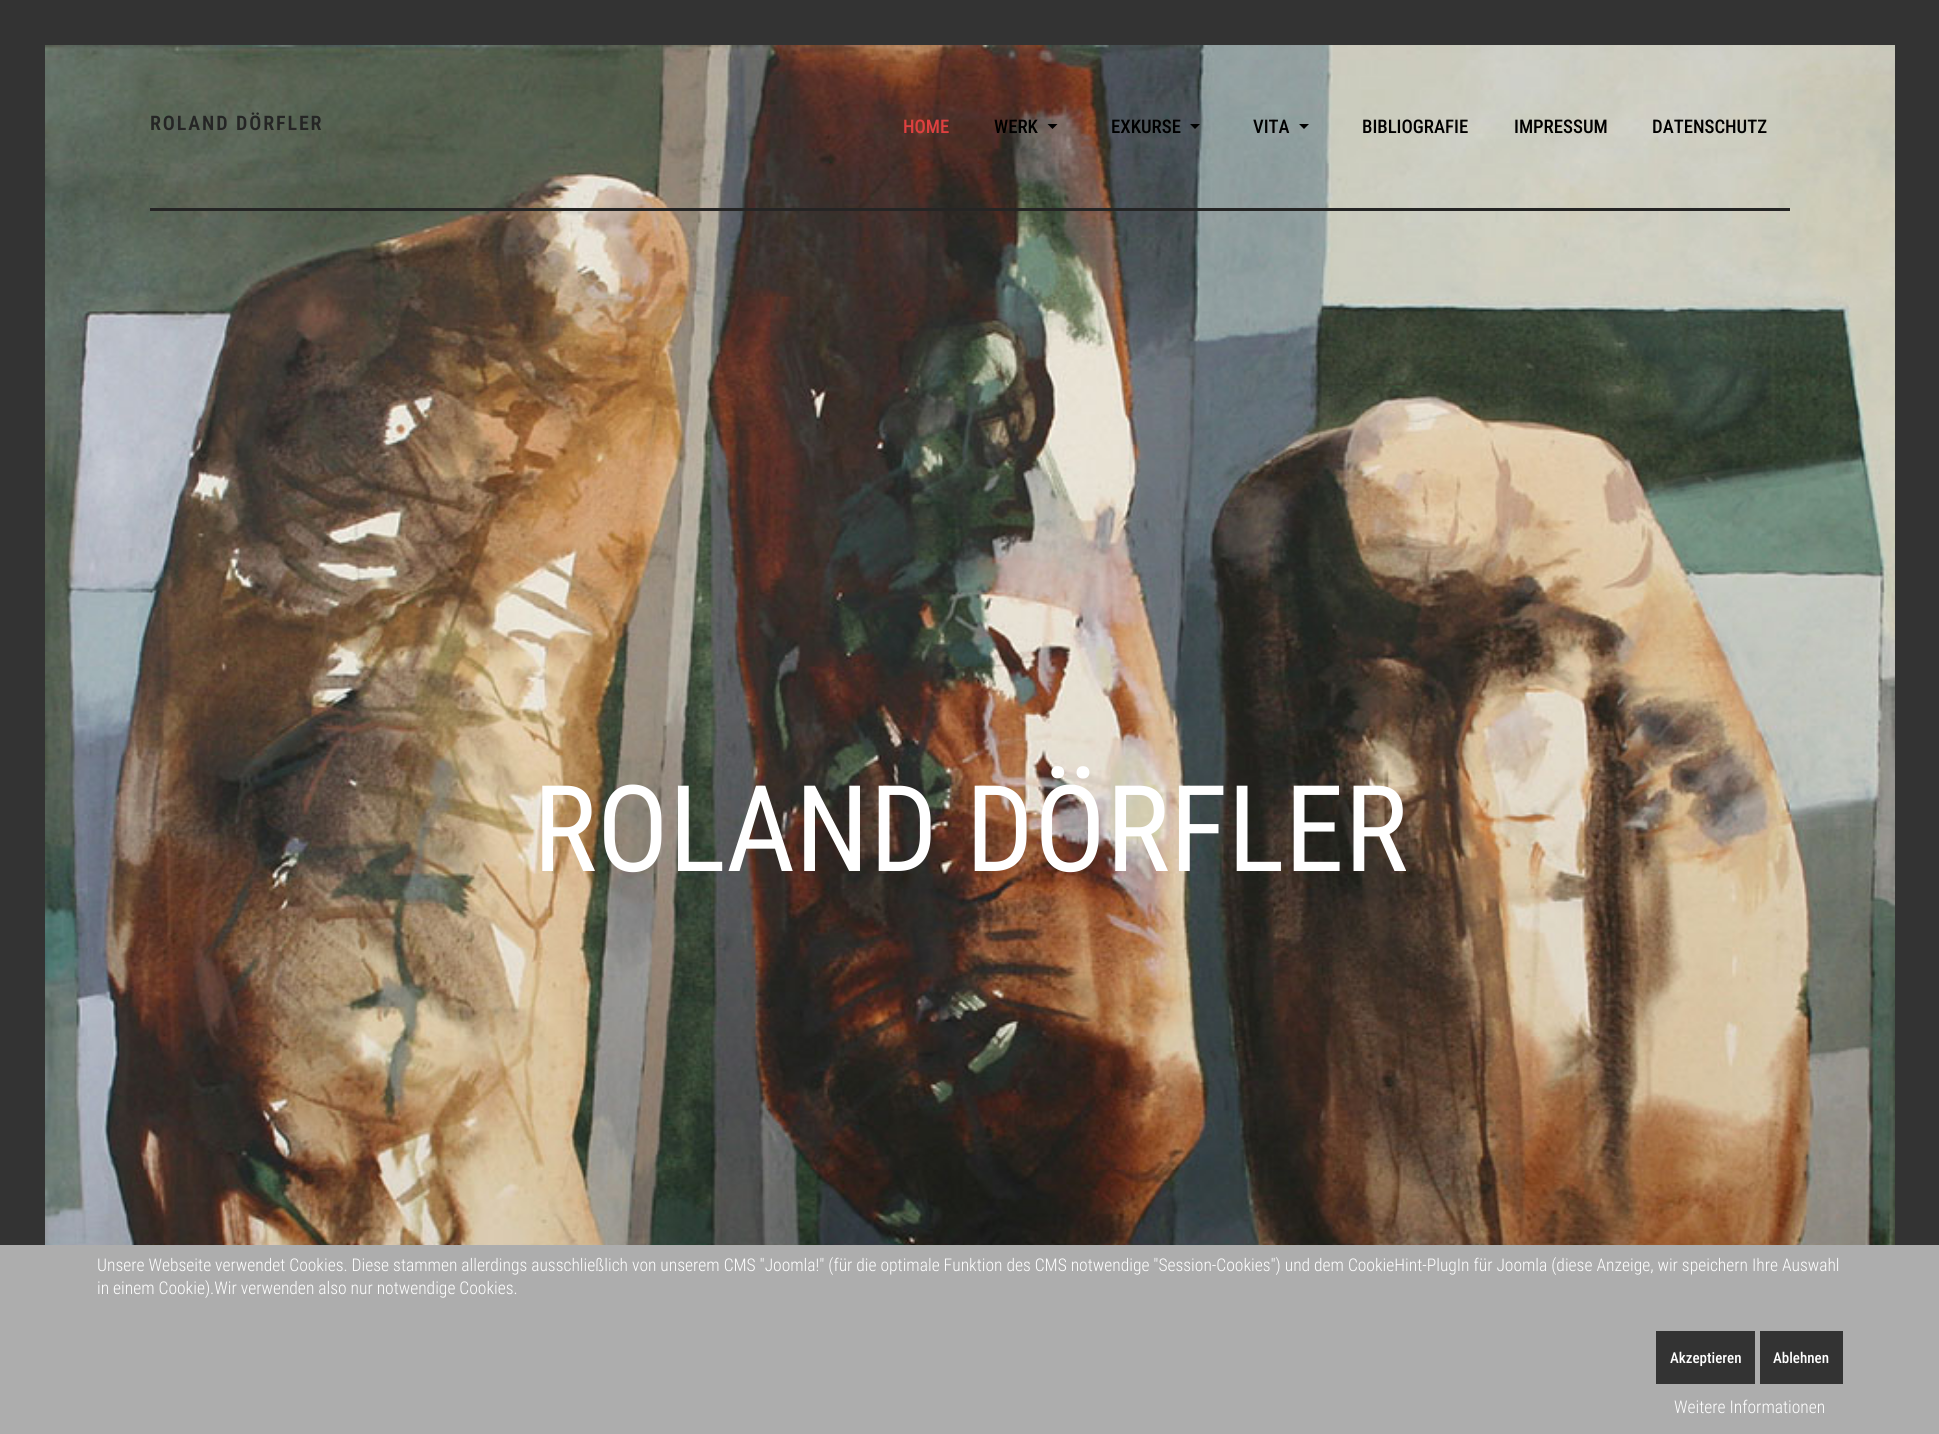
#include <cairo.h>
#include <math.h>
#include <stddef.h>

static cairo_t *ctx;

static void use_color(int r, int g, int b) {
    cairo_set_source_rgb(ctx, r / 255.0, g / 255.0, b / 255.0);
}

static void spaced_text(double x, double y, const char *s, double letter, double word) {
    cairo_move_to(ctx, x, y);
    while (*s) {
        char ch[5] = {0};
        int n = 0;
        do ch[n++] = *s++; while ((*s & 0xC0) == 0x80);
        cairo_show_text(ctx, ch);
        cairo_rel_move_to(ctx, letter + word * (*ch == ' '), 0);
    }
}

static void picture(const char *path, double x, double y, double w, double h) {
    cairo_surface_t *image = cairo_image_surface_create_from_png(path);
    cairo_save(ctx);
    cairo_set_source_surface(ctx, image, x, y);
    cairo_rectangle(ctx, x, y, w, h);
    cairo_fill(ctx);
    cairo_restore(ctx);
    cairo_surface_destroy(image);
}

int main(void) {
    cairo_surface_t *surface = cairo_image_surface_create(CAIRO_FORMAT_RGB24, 1939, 1434);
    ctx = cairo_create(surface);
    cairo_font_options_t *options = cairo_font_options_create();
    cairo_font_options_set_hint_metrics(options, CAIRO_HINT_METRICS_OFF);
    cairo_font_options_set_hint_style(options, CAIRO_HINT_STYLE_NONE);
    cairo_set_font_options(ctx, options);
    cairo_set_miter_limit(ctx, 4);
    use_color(51, 51, 51);
    cairo_paint(ctx);
    picture("img1.png", 45, 45, 1850, 1200);
    use_color(37, 37, 37);
    cairo_rectangle(ctx, 150, 208, 1640, 3);
    cairo_fill(ctx);
    cairo_select_font_face(ctx, "Roboto Condensed SemiBold", CAIRO_FONT_SLANT_NORMAL, CAIRO_FONT_WEIGHT_NORMAL);
    cairo_set_font_size(ctx, 20);
    spaced_text(150, 130, "ROLAND DÖRFLER", 1.9, 0);
    cairo_select_font_face(ctx, "Roboto Condensed Medium", CAIRO_FONT_SLANT_NORMAL, CAIRO_FONT_WEIGHT_NORMAL);
    cairo_set_font_size(ctx, 18.75);
    use_color(223, 64, 64);
    cairo_move_to(ctx, 903, 133);
    cairo_show_text(ctx, "HOME");
    use_color(0, 0, 0);
    cairo_move_to(ctx, 994, 133);
    cairo_show_text(ctx, "WERK");
    cairo_new_path(ctx);
    cairo_move_to(ctx, 1047.5, 124);
    cairo_line_to(ctx, 1057.5, 124);
    cairo_line_to(ctx, 1052.5, 129);
    cairo_close_path(ctx);
    cairo_fill(ctx);
    cairo_move_to(ctx, 1111, 133);
    cairo_show_text(ctx, "EXKURSE");
    cairo_new_path(ctx);
    cairo_move_to(ctx, 1190, 124);
    cairo_line_to(ctx, 1200, 124);
    cairo_line_to(ctx, 1195, 129);
    cairo_close_path(ctx);
    cairo_fill(ctx);
    cairo_move_to(ctx, 1253, 133);
    cairo_show_text(ctx, "VITA");
    cairo_new_path(ctx);
    cairo_move_to(ctx, 1299, 124);
    cairo_line_to(ctx, 1309, 124);
    cairo_line_to(ctx, 1304, 129);
    cairo_close_path(ctx);
    cairo_fill(ctx);
    cairo_move_to(ctx, 1362, 133);
    cairo_show_text(ctx, "BIBLIOGRAFIE");
    cairo_move_to(ctx, 1514, 133);
    cairo_show_text(ctx, "IMPRESSUM");
    cairo_move_to(ctx, 1652, 133);
    cairo_show_text(ctx, "DATENSCHUTZ");
    cairo_select_font_face(ctx, "Roboto Condensed", CAIRO_FONT_SLANT_NORMAL, CAIRO_FONT_WEIGHT_NORMAL);
    cairo_set_font_size(ctx, 120);
    use_color(255, 255, 255);
    cairo_move_to(ctx, 533, 871);
    cairo_show_text(ctx, "ROLAND DÖRFLER");
    use_color(173, 173, 173);
    cairo_rectangle(ctx, 0, 1245, 1939, 189);
    cairo_fill(ctx);
    cairo_select_font_face(ctx, "Roboto Condensed Light", CAIRO_FONT_SLANT_NORMAL, CAIRO_FONT_WEIGHT_NORMAL);
    cairo_set_font_size(ctx, 17.5);
    use_color(255, 255, 255);
    cairo_move_to(ctx, 97, 1271);
    cairo_show_text(ctx, "Unsere Webseite verwendet Cookies. Diese stammen allerdings ausschließlich von unserem CMS \"Joomla!\" (für die optimale Funktion des CMS notwendige \"Session-Cookies\") und dem CookieHint-PlugIn für Joomla (diese Anzeige, wir speichern Ihre Auswahl");
    cairo_move_to(ctx, 97, 1294);
    cairo_show_text(ctx, "in einem Cookie).Wir verwenden also nur notwendige Cookies.");
    use_color(51, 51, 51);
    cairo_rectangle(ctx, 1656, 1331, 99, 53);
    cairo_fill(ctx);
    cairo_select_font_face(ctx, "Roboto Condensed Medium", CAIRO_FONT_SLANT_NORMAL, CAIRO_FONT_WEIGHT_NORMAL);
    cairo_set_font_size(ctx, 15);
    use_color(255, 255, 255);
    cairo_move_to(ctx, 1670, 1363);
    cairo_show_text(ctx, "Akzeptieren");
    use_color(51, 51, 51);
    cairo_rectangle(ctx, 1760, 1331, 83, 53);
    cairo_fill(ctx);
    use_color(255, 255, 255);
    cairo_move_to(ctx, 1773, 1363);
    cairo_show_text(ctx, "Ablehnen");
    cairo_select_font_face(ctx, "Roboto Condensed Light", CAIRO_FONT_SLANT_NORMAL, CAIRO_FONT_WEIGHT_NORMAL);
    cairo_set_font_size(ctx, 17.5);
    cairo_move_to(ctx, 1674, 1413);
    cairo_show_text(ctx, "Weitere Informationen");
    cairo_surface_write_to_png(surface, "result.png");
    cairo_font_options_destroy(options);
    cairo_destroy(ctx);
    cairo_surface_destroy(surface);
    return 0;
}
